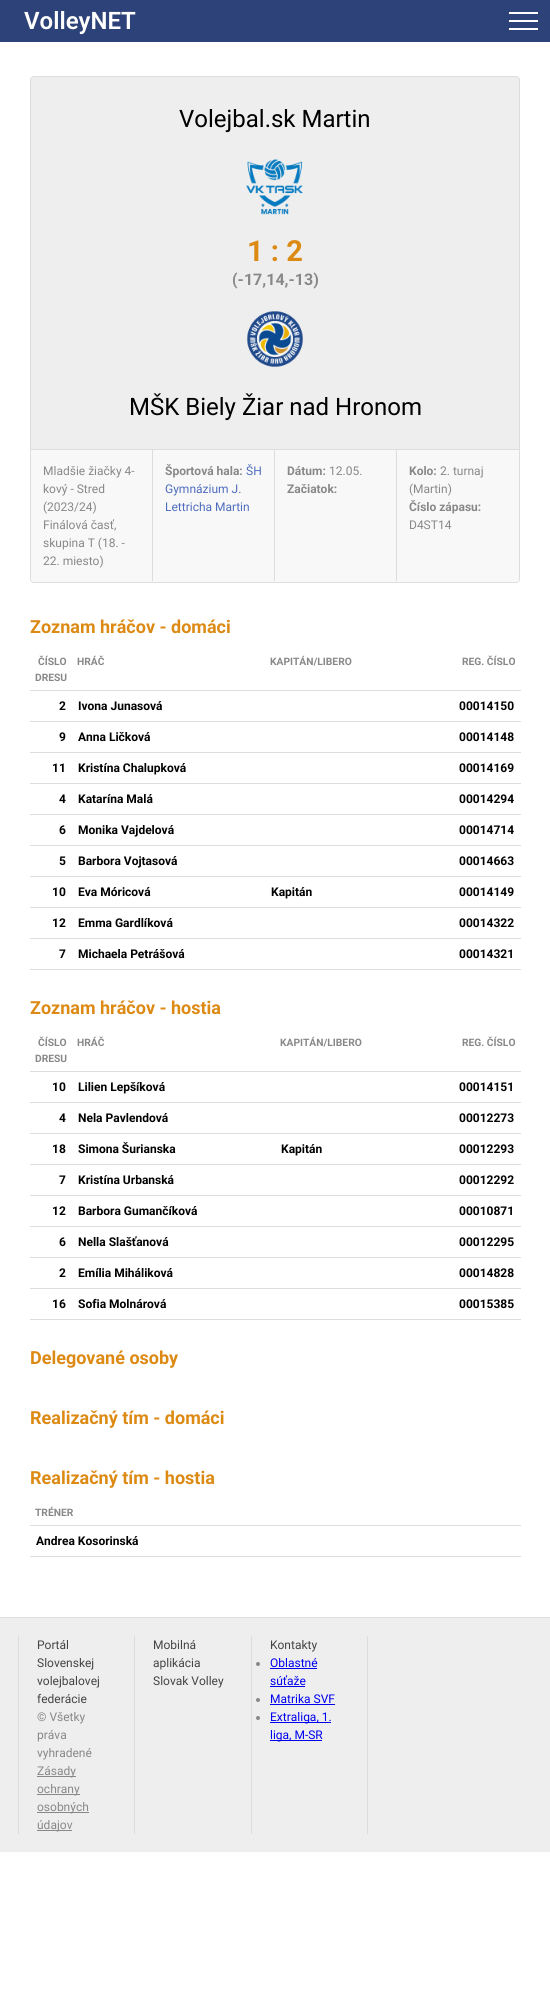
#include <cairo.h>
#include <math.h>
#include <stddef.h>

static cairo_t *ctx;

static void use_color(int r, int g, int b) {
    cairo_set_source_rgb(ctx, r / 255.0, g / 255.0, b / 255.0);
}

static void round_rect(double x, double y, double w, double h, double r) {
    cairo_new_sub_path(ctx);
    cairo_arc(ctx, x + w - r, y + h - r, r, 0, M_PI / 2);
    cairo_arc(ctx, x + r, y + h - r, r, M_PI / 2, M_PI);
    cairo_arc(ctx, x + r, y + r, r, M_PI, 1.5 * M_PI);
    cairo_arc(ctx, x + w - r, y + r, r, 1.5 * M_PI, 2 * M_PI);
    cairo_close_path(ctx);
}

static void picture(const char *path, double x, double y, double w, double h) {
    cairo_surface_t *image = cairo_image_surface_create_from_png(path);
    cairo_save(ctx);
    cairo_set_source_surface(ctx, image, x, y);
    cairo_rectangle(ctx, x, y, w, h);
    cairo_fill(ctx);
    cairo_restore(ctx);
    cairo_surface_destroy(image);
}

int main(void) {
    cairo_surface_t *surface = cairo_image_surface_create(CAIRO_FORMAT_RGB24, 550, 2016);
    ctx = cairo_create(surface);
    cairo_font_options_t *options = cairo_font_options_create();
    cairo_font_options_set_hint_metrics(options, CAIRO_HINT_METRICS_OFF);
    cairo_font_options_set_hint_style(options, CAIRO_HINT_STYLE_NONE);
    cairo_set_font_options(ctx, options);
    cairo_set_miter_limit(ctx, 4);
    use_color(255, 255, 255);
    cairo_paint(ctx);
    use_color(45, 66, 120);
    cairo_rectangle(ctx, 0, 0, 550, 42);
    cairo_fill(ctx);
    cairo_select_font_face(ctx, "Roboto SemiBold", CAIRO_FONT_SLANT_NORMAL, CAIRO_FONT_WEIGHT_NORMAL);
    cairo_set_font_size(ctx, 24);
    use_color(255, 255, 255);
    cairo_move_to(ctx, 24, 29);
    cairo_show_text(ctx, "VolleyNET");
    cairo_rectangle(ctx, 509, 12, 29, 2);
    cairo_fill(ctx);
    cairo_rectangle(ctx, 509, 20, 29, 2);
    cairo_fill(ctx);
    cairo_rectangle(ctx, 509, 28, 29, 2);
    cairo_fill(ctx);
    use_color(238, 238, 238);
    round_rect(30.5, 76.5, 489, 506, 3.5);
    cairo_fill_preserve(ctx);
    use_color(221, 221, 221);
    cairo_set_line_width(ctx, 1);
    cairo_stroke(ctx);
    cairo_select_font_face(ctx, "Roboto", CAIRO_FONT_SLANT_NORMAL, CAIRO_FONT_WEIGHT_NORMAL);
    use_color(0, 0, 0);
    cairo_move_to(ctx, 179, 127);
    cairo_show_text(ctx, "Volejbal.sk Martin");
    picture("img1.png", 246, 159, 57, 56);
    cairo_select_font_face(ctx, "Roboto", CAIRO_FONT_SLANT_NORMAL, CAIRO_FONT_WEIGHT_BOLD);
    cairo_set_font_size(ctx, 29);
    use_color(220, 138, 20);
    cairo_move_to(ctx, 247, 261);
    cairo_show_text(ctx, "1 : 2");
    cairo_set_font_size(ctx, 16);
    use_color(136, 136, 136);
    cairo_move_to(ctx, 232, 285);
    cairo_show_text(ctx, "(-17,14,-13)");
    picture("img2.png", 246, 311, 58, 56);
    cairo_select_font_face(ctx, "Roboto", CAIRO_FONT_SLANT_NORMAL, CAIRO_FONT_WEIGHT_NORMAL);
    cairo_set_font_size(ctx, 24);
    use_color(0, 0, 0);
    cairo_move_to(ctx, 129, 415);
    cairo_show_text(ctx, "MŠK Biely Žiar nad Hronom");
    use_color(248, 248, 248);
    cairo_new_path(ctx);
    cairo_move_to(ctx, 31, 449);
    cairo_line_to(ctx, 519, 449);
    cairo_line_to(ctx, 519, 579.5);
    cairo_curve_to(ctx, 519, 581, 518, 582, 516.5, 582);
    cairo_line_to(ctx, 33.5, 582);
    cairo_curve_to(ctx, 32, 582, 31, 581, 31, 579.5);
    cairo_close_path(ctx);
    cairo_fill(ctx);
    use_color(221, 221, 221);
    cairo_rectangle(ctx, 31, 449, 488, 1);
    cairo_fill(ctx);
    cairo_set_font_size(ctx, 12);
    use_color(136, 136, 136);
    cairo_move_to(ctx, 43, 475);
    cairo_show_text(ctx, "Mladšie žiačky 4-");
    cairo_move_to(ctx, 43, 493);
    cairo_show_text(ctx, "kový - Stred");
    cairo_move_to(ctx, 43, 511);
    cairo_show_text(ctx, "(2023/24)");
    cairo_move_to(ctx, 43, 529);
    cairo_show_text(ctx, "Finálová časť,");
    cairo_move_to(ctx, 43, 547);
    cairo_show_text(ctx, "skupina T (18. -");
    cairo_move_to(ctx, 43, 565);
    cairo_show_text(ctx, "22. miesto)");
    use_color(221, 221, 221);
    cairo_new_path(ctx);
    cairo_move_to(ctx, 152, 449);
    cairo_line_to(ctx, 274, 449);
    cairo_line_to(ctx, 274, 450);
    cairo_line_to(ctx, 153, 450);
    cairo_line_to(ctx, 153, 581);
    cairo_line_to(ctx, 152, 581);
    cairo_close_path(ctx);
    cairo_fill(ctx);
    cairo_select_font_face(ctx, "Roboto", CAIRO_FONT_SLANT_NORMAL, CAIRO_FONT_WEIGHT_BOLD);
    use_color(136, 136, 136);
    cairo_move_to(ctx, 165, 475);
    cairo_show_text(ctx, "Športová hala:");
    cairo_select_font_face(ctx, "Roboto", CAIRO_FONT_SLANT_NORMAL, CAIRO_FONT_WEIGHT_NORMAL);
    use_color(78, 109, 189);
    cairo_move_to(ctx, 246, 475);
    cairo_show_text(ctx, "ŠH");
    cairo_move_to(ctx, 165, 493);
    cairo_show_text(ctx, "Gymnázium J.");
    cairo_move_to(ctx, 165, 511);
    cairo_show_text(ctx, "Lettricha Martin");
    use_color(221, 221, 221);
    cairo_new_path(ctx);
    cairo_move_to(ctx, 274, 449);
    cairo_line_to(ctx, 396, 449);
    cairo_line_to(ctx, 396, 450);
    cairo_line_to(ctx, 275, 450);
    cairo_line_to(ctx, 275, 581);
    cairo_line_to(ctx, 274, 581);
    cairo_close_path(ctx);
    cairo_fill(ctx);
    cairo_select_font_face(ctx, "Roboto", CAIRO_FONT_SLANT_NORMAL, CAIRO_FONT_WEIGHT_BOLD);
    use_color(136, 136, 136);
    cairo_move_to(ctx, 287, 475);
    cairo_show_text(ctx, "Dátum:");
    cairo_select_font_face(ctx, "Roboto", CAIRO_FONT_SLANT_NORMAL, CAIRO_FONT_WEIGHT_NORMAL);
    cairo_move_to(ctx, 329, 475);
    cairo_show_text(ctx, "12.05.");
    cairo_select_font_face(ctx, "Roboto", CAIRO_FONT_SLANT_NORMAL, CAIRO_FONT_WEIGHT_BOLD);
    cairo_move_to(ctx, 287, 493);
    cairo_show_text(ctx, "Začiatok:");
    use_color(221, 221, 221);
    cairo_new_path(ctx);
    cairo_move_to(ctx, 396, 449);
    cairo_line_to(ctx, 518, 449);
    cairo_line_to(ctx, 518, 450);
    cairo_line_to(ctx, 397, 450);
    cairo_line_to(ctx, 397, 581);
    cairo_line_to(ctx, 396, 581);
    cairo_close_path(ctx);
    cairo_fill(ctx);
    use_color(136, 136, 136);
    cairo_move_to(ctx, 409, 475);
    cairo_show_text(ctx, "Kolo:");
    cairo_select_font_face(ctx, "Roboto", CAIRO_FONT_SLANT_NORMAL, CAIRO_FONT_WEIGHT_NORMAL);
    cairo_move_to(ctx, 440, 475);
    cairo_show_text(ctx, "2. turnaj");
    cairo_move_to(ctx, 409, 493);
    cairo_show_text(ctx, "(Martin)");
    cairo_select_font_face(ctx, "Roboto", CAIRO_FONT_SLANT_NORMAL, CAIRO_FONT_WEIGHT_BOLD);
    cairo_move_to(ctx, 409, 511);
    cairo_show_text(ctx, "Číslo zápasu:");
    cairo_select_font_face(ctx, "Roboto", CAIRO_FONT_SLANT_NORMAL, CAIRO_FONT_WEIGHT_NORMAL);
    cairo_move_to(ctx, 409, 529);
    cairo_show_text(ctx, "D4ST14");
    cairo_select_font_face(ctx, "Roboto", CAIRO_FONT_SLANT_NORMAL, CAIRO_FONT_WEIGHT_BOLD);
    cairo_set_font_size(ctx, 18);
    use_color(220, 138, 20);
    cairo_move_to(ctx, 30, 633);
    cairo_show_text(ctx, "Zoznam hráčov - domáci");
    cairo_set_font_size(ctx, 10.25);
    use_color(136, 136, 136);
    cairo_move_to(ctx, 38, 665);
    cairo_show_text(ctx, "ČÍSLO");
    cairo_move_to(ctx, 35, 681);
    cairo_show_text(ctx, "DRESU");
    cairo_move_to(ctx, 77, 665);
    cairo_show_text(ctx, "HRÁČ");
    cairo_move_to(ctx, 270, 665);
    cairo_show_text(ctx, "KAPITÁN/LIBERO");
    use_color(221, 221, 221);
    cairo_rectangle(ctx, 30, 690, 491, 1);
    cairo_fill(ctx);
    use_color(136, 136, 136);
    cairo_move_to(ctx, 462, 665);
    cairo_show_text(ctx, "REG. ČÍSLO");
    cairo_set_font_size(ctx, 12);
    use_color(0, 0, 0);
    cairo_move_to(ctx, 59, 710);
    cairo_show_text(ctx, "2");
    cairo_move_to(ctx, 78, 710);
    cairo_show_text(ctx, "Ivona Junasová");
    use_color(221, 221, 221);
    cairo_rectangle(ctx, 30, 721, 491, 1);
    cairo_fill(ctx);
    use_color(0, 0, 0);
    cairo_move_to(ctx, 459, 710);
    cairo_show_text(ctx, "00014150");
    cairo_move_to(ctx, 59, 741);
    cairo_show_text(ctx, "9");
    cairo_move_to(ctx, 78, 741);
    cairo_show_text(ctx, "Anna Ličková");
    use_color(221, 221, 221);
    cairo_rectangle(ctx, 30, 752, 491, 1);
    cairo_fill(ctx);
    use_color(0, 0, 0);
    cairo_move_to(ctx, 459, 741);
    cairo_show_text(ctx, "00014148");
    cairo_move_to(ctx, 52, 772);
    cairo_show_text(ctx, "11");
    cairo_move_to(ctx, 78, 772);
    cairo_show_text(ctx, "Kristína Chalupková");
    use_color(221, 221, 221);
    cairo_rectangle(ctx, 30, 783, 491, 1);
    cairo_fill(ctx);
    use_color(0, 0, 0);
    cairo_move_to(ctx, 459, 772);
    cairo_show_text(ctx, "00014169");
    cairo_move_to(ctx, 59, 803);
    cairo_show_text(ctx, "4");
    cairo_move_to(ctx, 78, 803);
    cairo_show_text(ctx, "Katarína Malá");
    use_color(221, 221, 221);
    cairo_rectangle(ctx, 30, 814, 491, 1);
    cairo_fill(ctx);
    use_color(0, 0, 0);
    cairo_move_to(ctx, 459, 803);
    cairo_show_text(ctx, "00014294");
    cairo_move_to(ctx, 59, 834);
    cairo_show_text(ctx, "6");
    cairo_move_to(ctx, 78, 834);
    cairo_show_text(ctx, "Monika Vajdelová");
    use_color(221, 221, 221);
    cairo_rectangle(ctx, 30, 845, 491, 1);
    cairo_fill(ctx);
    use_color(0, 0, 0);
    cairo_move_to(ctx, 459, 834);
    cairo_show_text(ctx, "00014714");
    cairo_move_to(ctx, 59, 865);
    cairo_show_text(ctx, "5");
    cairo_move_to(ctx, 78, 865);
    cairo_show_text(ctx, "Barbora Vojtasová");
    use_color(221, 221, 221);
    cairo_rectangle(ctx, 30, 876, 491, 1);
    cairo_fill(ctx);
    use_color(0, 0, 0);
    cairo_move_to(ctx, 459, 865);
    cairo_show_text(ctx, "00014663");
    cairo_move_to(ctx, 52, 896);
    cairo_show_text(ctx, "10");
    cairo_move_to(ctx, 78, 896);
    cairo_show_text(ctx, "Eva Móricová");
    cairo_move_to(ctx, 271, 896);
    cairo_show_text(ctx, "Kapitán");
    use_color(221, 221, 221);
    cairo_rectangle(ctx, 30, 907, 491, 1);
    cairo_fill(ctx);
    use_color(0, 0, 0);
    cairo_move_to(ctx, 459, 896);
    cairo_show_text(ctx, "00014149");
    cairo_move_to(ctx, 52, 927);
    cairo_show_text(ctx, "12");
    cairo_move_to(ctx, 78, 927);
    cairo_show_text(ctx, "Emma Gardlíková");
    use_color(221, 221, 221);
    cairo_rectangle(ctx, 30, 938, 491, 1);
    cairo_fill(ctx);
    use_color(0, 0, 0);
    cairo_move_to(ctx, 459, 927);
    cairo_show_text(ctx, "00014322");
    cairo_move_to(ctx, 59, 958);
    cairo_show_text(ctx, "7");
    cairo_move_to(ctx, 78, 958);
    cairo_show_text(ctx, "Michaela Petrášová");
    use_color(221, 221, 221);
    cairo_rectangle(ctx, 30, 969, 491, 1);
    cairo_fill(ctx);
    use_color(0, 0, 0);
    cairo_move_to(ctx, 459, 958);
    cairo_show_text(ctx, "00014321");
    cairo_set_font_size(ctx, 18);
    use_color(220, 138, 20);
    cairo_move_to(ctx, 30, 1014);
    cairo_show_text(ctx, "Zoznam hráčov - hostia");
    cairo_set_font_size(ctx, 10.25);
    use_color(136, 136, 136);
    cairo_move_to(ctx, 38, 1046);
    cairo_show_text(ctx, "ČÍSLO");
    cairo_move_to(ctx, 35, 1062);
    cairo_show_text(ctx, "DRESU");
    cairo_move_to(ctx, 77, 1046);
    cairo_show_text(ctx, "HRÁČ");
    cairo_move_to(ctx, 280, 1046);
    cairo_show_text(ctx, "KAPITÁN/LIBERO");
    use_color(221, 221, 221);
    cairo_rectangle(ctx, 30, 1071, 491, 1);
    cairo_fill(ctx);
    use_color(136, 136, 136);
    cairo_move_to(ctx, 462, 1046);
    cairo_show_text(ctx, "REG. ČÍSLO");
    cairo_set_font_size(ctx, 12);
    use_color(0, 0, 0);
    cairo_move_to(ctx, 52, 1091);
    cairo_show_text(ctx, "10");
    cairo_move_to(ctx, 78, 1091);
    cairo_show_text(ctx, "Lilien Lepšíková");
    use_color(221, 221, 221);
    cairo_rectangle(ctx, 30, 1102, 491, 1);
    cairo_fill(ctx);
    use_color(0, 0, 0);
    cairo_move_to(ctx, 459, 1091);
    cairo_show_text(ctx, "00014151");
    cairo_move_to(ctx, 59, 1122);
    cairo_show_text(ctx, "4");
    cairo_move_to(ctx, 78, 1122);
    cairo_show_text(ctx, "Nela Pavlendová");
    use_color(221, 221, 221);
    cairo_rectangle(ctx, 30, 1133, 491, 1);
    cairo_fill(ctx);
    use_color(0, 0, 0);
    cairo_move_to(ctx, 459, 1122);
    cairo_show_text(ctx, "00012273");
    cairo_move_to(ctx, 52, 1153);
    cairo_show_text(ctx, "18");
    cairo_move_to(ctx, 78, 1153);
    cairo_show_text(ctx, "Simona Šurianska");
    cairo_move_to(ctx, 281, 1153);
    cairo_show_text(ctx, "Kapitán");
    use_color(221, 221, 221);
    cairo_rectangle(ctx, 30, 1164, 491, 1);
    cairo_fill(ctx);
    use_color(0, 0, 0);
    cairo_move_to(ctx, 459, 1153);
    cairo_show_text(ctx, "00012293");
    cairo_move_to(ctx, 59, 1184);
    cairo_show_text(ctx, "7");
    cairo_move_to(ctx, 78, 1184);
    cairo_show_text(ctx, "Kristína Urbanská");
    use_color(221, 221, 221);
    cairo_rectangle(ctx, 30, 1195, 491, 1);
    cairo_fill(ctx);
    use_color(0, 0, 0);
    cairo_move_to(ctx, 459, 1184);
    cairo_show_text(ctx, "00012292");
    cairo_move_to(ctx, 52, 1215);
    cairo_show_text(ctx, "12");
    cairo_move_to(ctx, 78, 1215);
    cairo_show_text(ctx, "Barbora Gumančíková");
    use_color(221, 221, 221);
    cairo_rectangle(ctx, 30, 1226, 491, 1);
    cairo_fill(ctx);
    use_color(0, 0, 0);
    cairo_move_to(ctx, 459, 1215);
    cairo_show_text(ctx, "00010871");
    cairo_move_to(ctx, 59, 1246);
    cairo_show_text(ctx, "6");
    cairo_move_to(ctx, 78, 1246);
    cairo_show_text(ctx, "Nella Slašťanová");
    use_color(221, 221, 221);
    cairo_rectangle(ctx, 30, 1257, 491, 1);
    cairo_fill(ctx);
    use_color(0, 0, 0);
    cairo_move_to(ctx, 459, 1246);
    cairo_show_text(ctx, "00012295");
    cairo_move_to(ctx, 59, 1277);
    cairo_show_text(ctx, "2");
    cairo_move_to(ctx, 78, 1277);
    cairo_show_text(ctx, "Emília Miháliková");
    use_color(221, 221, 221);
    cairo_rectangle(ctx, 30, 1288, 491, 1);
    cairo_fill(ctx);
    use_color(0, 0, 0);
    cairo_move_to(ctx, 459, 1277);
    cairo_show_text(ctx, "00014828");
    cairo_move_to(ctx, 52, 1308);
    cairo_show_text(ctx, "16");
    cairo_move_to(ctx, 78, 1308);
    cairo_show_text(ctx, "Sofia Molnárová");
    use_color(221, 221, 221);
    cairo_rectangle(ctx, 30, 1319, 491, 1);
    cairo_fill(ctx);
    use_color(0, 0, 0);
    cairo_move_to(ctx, 459, 1308);
    cairo_show_text(ctx, "00015385");
    cairo_set_font_size(ctx, 18);
    use_color(220, 138, 20);
    cairo_move_to(ctx, 30, 1364);
    cairo_show_text(ctx, "Delegované osoby");
    cairo_move_to(ctx, 30, 1424);
    cairo_show_text(ctx, "Realizačný tím - domáci");
    cairo_move_to(ctx, 30, 1484);
    cairo_show_text(ctx, "Realizačný tím - hostia");
    use_color(221, 221, 221);
    cairo_rectangle(ctx, 30, 1525, 491, 1);
    cairo_fill(ctx);
    cairo_set_font_size(ctx, 10.25);
    use_color(136, 136, 136);
    cairo_move_to(ctx, 35, 1516);
    cairo_show_text(ctx, "TRÉNER");
    use_color(221, 221, 221);
    cairo_rectangle(ctx, 30, 1556, 491, 1);
    cairo_fill(ctx);
    cairo_set_font_size(ctx, 12);
    use_color(0, 0, 0);
    cairo_move_to(ctx, 36, 1545);
    cairo_show_text(ctx, "Andrea Kosorinská");
    use_color(238, 238, 238);
    cairo_rectangle(ctx, 0, 1618, 550, 234);
    cairo_fill(ctx);
    use_color(221, 221, 221);
    cairo_rectangle(ctx, 0, 1617, 550, 1);
    cairo_fill(ctx);
    cairo_rectangle(ctx, 18, 1636, 1, 198);
    cairo_fill(ctx);
    cairo_select_font_face(ctx, "Roboto", CAIRO_FONT_SLANT_NORMAL, CAIRO_FONT_WEIGHT_NORMAL);
    use_color(68, 68, 68);
    cairo_move_to(ctx, 37, 1649);
    cairo_show_text(ctx, "Portál");
    cairo_move_to(ctx, 37, 1667);
    cairo_show_text(ctx, "Slovenskej");
    cairo_move_to(ctx, 37, 1685);
    cairo_show_text(ctx, "volejbalovej");
    cairo_move_to(ctx, 37, 1703);
    cairo_show_text(ctx, "federácie");
    use_color(136, 136, 136);
    cairo_move_to(ctx, 37, 1721);
    cairo_show_text(ctx, "© Všetky");
    cairo_move_to(ctx, 37, 1739);
    cairo_show_text(ctx, "práva");
    cairo_move_to(ctx, 37, 1757);
    cairo_show_text(ctx, "vyhradené");
    cairo_rectangle(ctx, 37, 1776, 39, 1);
    cairo_fill(ctx);
    cairo_move_to(ctx, 37, 1775);
    cairo_show_text(ctx, "Zásady");
    cairo_rectangle(ctx, 37, 1794, 43, 1);
    cairo_fill(ctx);
    cairo_move_to(ctx, 37, 1793);
    cairo_show_text(ctx, "ochrany");
    cairo_rectangle(ctx, 37, 1812, 52, 1);
    cairo_fill(ctx);
    cairo_move_to(ctx, 37, 1811);
    cairo_show_text(ctx, "osobných");
    cairo_rectangle(ctx, 37, 1830, 35, 1);
    cairo_fill(ctx);
    cairo_move_to(ctx, 37, 1829);
    cairo_show_text(ctx, "údajov");
    use_color(221, 221, 221);
    cairo_rectangle(ctx, 134, 1636, 1, 198);
    cairo_fill(ctx);
    use_color(68, 68, 68);
    cairo_move_to(ctx, 153, 1649);
    cairo_show_text(ctx, "Mobilná");
    cairo_move_to(ctx, 153, 1667);
    cairo_show_text(ctx, "aplikácia");
    cairo_move_to(ctx, 153, 1685);
    cairo_show_text(ctx, "Slovak Volley");
    use_color(221, 221, 221);
    cairo_rectangle(ctx, 251, 1636, 1, 198);
    cairo_fill(ctx);
    use_color(68, 68, 68);
    cairo_move_to(ctx, 270, 1649);
    cairo_show_text(ctx, "Kontakty");
    use_color(136, 136, 136);
    cairo_new_path(ctx);
    cairo_arc(ctx, 258, 1664, 2, 0, 2 * M_PI);
    cairo_fill(ctx);
    use_color(0, 0, 238);
    cairo_move_to(ctx, 270, 1667);
    cairo_show_text(ctx, "Oblastné");
    cairo_rectangle(ctx, 270, 1668, 47, 1);
    cairo_fill(ctx);
    cairo_move_to(ctx, 270, 1685);
    cairo_show_text(ctx, "súťaže");
    cairo_rectangle(ctx, 270, 1686, 35, 1);
    cairo_fill(ctx);
    use_color(136, 136, 136);
    cairo_arc(ctx, 258, 1700, 2, 0, 2 * M_PI);
    cairo_fill(ctx);
    use_color(0, 0, 238);
    cairo_move_to(ctx, 270, 1703);
    cairo_show_text(ctx, "Matrika SVF");
    cairo_rectangle(ctx, 270, 1704, 65, 1);
    cairo_fill(ctx);
    use_color(136, 136, 136);
    cairo_arc(ctx, 258, 1718, 2, 0, 2 * M_PI);
    cairo_fill(ctx);
    use_color(0, 0, 238);
    cairo_rectangle(ctx, 270, 1722, 61, 1);
    cairo_fill(ctx);
    cairo_move_to(ctx, 270, 1721);
    cairo_show_text(ctx, "Extraliga, 1.");
    cairo_rectangle(ctx, 270, 1740, 52, 1);
    cairo_fill(ctx);
    cairo_move_to(ctx, 270, 1739);
    cairo_show_text(ctx, "liga, M-SR");
    use_color(221, 221, 221);
    cairo_rectangle(ctx, 367, 1636, 1, 198);
    cairo_fill(ctx);
    cairo_surface_write_to_png(surface, "result.png");
    cairo_font_options_destroy(options);
    cairo_destroy(ctx);
    cairo_surface_destroy(surface);
    return 0;
}
